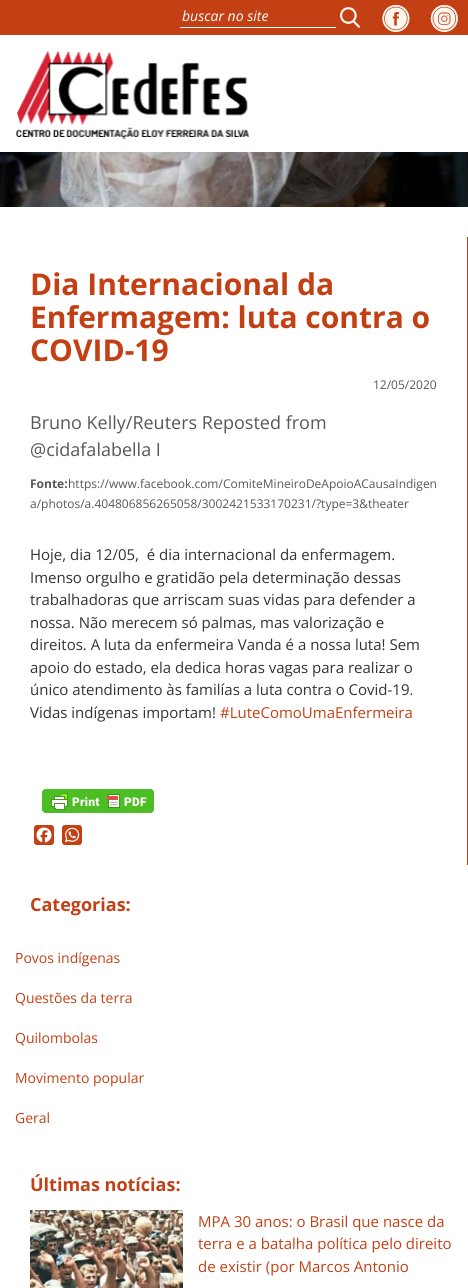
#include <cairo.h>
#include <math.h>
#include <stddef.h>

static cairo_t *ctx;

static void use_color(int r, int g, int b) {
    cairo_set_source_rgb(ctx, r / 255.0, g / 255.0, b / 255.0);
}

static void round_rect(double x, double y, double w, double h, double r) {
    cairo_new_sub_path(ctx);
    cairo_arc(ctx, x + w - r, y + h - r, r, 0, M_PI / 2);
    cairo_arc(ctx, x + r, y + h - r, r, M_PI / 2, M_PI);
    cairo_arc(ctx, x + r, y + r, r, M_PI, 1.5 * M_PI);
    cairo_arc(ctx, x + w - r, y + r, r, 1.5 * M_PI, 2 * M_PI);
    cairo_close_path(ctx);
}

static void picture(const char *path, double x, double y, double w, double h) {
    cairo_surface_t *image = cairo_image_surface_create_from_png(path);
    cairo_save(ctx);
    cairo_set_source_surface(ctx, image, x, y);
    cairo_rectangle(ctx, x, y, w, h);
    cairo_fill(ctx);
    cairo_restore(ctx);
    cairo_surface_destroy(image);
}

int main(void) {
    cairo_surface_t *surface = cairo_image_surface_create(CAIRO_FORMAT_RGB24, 468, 1288);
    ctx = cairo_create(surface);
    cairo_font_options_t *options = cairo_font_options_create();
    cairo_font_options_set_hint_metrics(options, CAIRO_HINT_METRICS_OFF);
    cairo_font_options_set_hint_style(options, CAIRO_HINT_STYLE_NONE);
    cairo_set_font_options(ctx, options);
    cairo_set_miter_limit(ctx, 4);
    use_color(255, 255, 255);
    cairo_paint(ctx);
    use_color(195, 64, 20);
    cairo_rectangle(ctx, 0, 0, 468, 35);
    cairo_fill(ctx);
    use_color(255, 255, 255);
    cairo_rectangle(ctx, 180, 27, 156, 1);
    cairo_fill(ctx);
    cairo_select_font_face(ctx, "Open Sans", CAIRO_FONT_SLANT_ITALIC, CAIRO_FONT_WEIGHT_NORMAL);
    cairo_set_font_size(ctx, 14);
    cairo_move_to(ctx, 182, 21);
    cairo_show_text(ctx, "buscar no site");
    picture("img1.png", 340, 7, 20, 21);
    picture("img2.png", 382, 5, 28, 27);
    picture("img3.png", 430, 5, 28, 27);
    picture("img4.png", 16, 51, 233, 89);
    picture("img5.png", 0, 152, 468, 55);
    use_color(195, 64, 20);
    cairo_rectangle(ctx, 467, 237, 1, 628);
    cairo_fill(ctx);
    cairo_select_font_face(ctx, "Open Sans", CAIRO_FONT_SLANT_NORMAL, CAIRO_FONT_WEIGHT_BOLD);
    cairo_set_font_size(ctx, 30);
    cairo_move_to(ctx, 30, 295);
    cairo_show_text(ctx, "Dia Internacional da");
    cairo_move_to(ctx, 30, 328);
    cairo_show_text(ctx, "Enfermagem: luta contra o");
    cairo_move_to(ctx, 30, 361);
    cairo_show_text(ctx, "COVID-19");
    cairo_select_font_face(ctx, "Open Sans", CAIRO_FONT_SLANT_NORMAL, CAIRO_FONT_WEIGHT_NORMAL);
    cairo_set_font_size(ctx, 12);
    use_color(87, 87, 86);
    cairo_move_to(ctx, 373, 389);
    cairo_show_text(ctx, "12/05/2020");
    cairo_set_font_size(ctx, 18);
    cairo_move_to(ctx, 30, 429);
    cairo_show_text(ctx, "Bruno Kelly/Reuters Reposted from");
    cairo_move_to(ctx, 30, 456);
    cairo_show_text(ctx, "@cidafalabella I");
    cairo_select_font_face(ctx, "Open Sans", CAIRO_FONT_SLANT_NORMAL, CAIRO_FONT_WEIGHT_BOLD);
    cairo_set_font_size(ctx, 12);
    cairo_move_to(ctx, 30, 488);
    cairo_show_text(ctx, "Fonte:");
    cairo_select_font_face(ctx, "Open Sans", CAIRO_FONT_SLANT_NORMAL, CAIRO_FONT_WEIGHT_NORMAL);
    cairo_move_to(ctx, 68, 488);
    cairo_show_text(ctx, "https://www.facebook.com/ComiteMineiroDeApoioACausaIndigen");
    cairo_move_to(ctx, 30, 508);
    cairo_show_text(ctx, "a/photos/a.404806856265058/3002421533170231/?type=3&theater");
    cairo_set_font_size(ctx, 15);
    use_color(51, 51, 51);
    cairo_move_to(ctx, 30, 560);
    cairo_show_text(ctx, "Hoje, dia 12/05,  é dia internacional da enfermagem.");
    cairo_move_to(ctx, 30, 583);
    cairo_show_text(ctx, "Imenso orgulho e gratidão pela determinação dessas");
    cairo_move_to(ctx, 30, 605);
    cairo_show_text(ctx, "trabalhadoras que arriscam suas vidas para defender a");
    cairo_move_to(ctx, 30, 628);
    cairo_show_text(ctx, "nossa. Não merecem só palmas, mas valorização e");
    cairo_move_to(ctx, 30, 650);
    cairo_show_text(ctx, "direitos. A luta da enfermeira Vanda é a nossa luta! Sem");
    cairo_move_to(ctx, 30, 673);
    cairo_show_text(ctx, "apoio do estado, ela dedica horas vagas para realizar o");
    cairo_move_to(ctx, 30, 695);
    cairo_show_text(ctx, "único atendimento às familías a luta contra o Covid-19.");
    cairo_move_to(ctx, 30, 718);
    cairo_show_text(ctx, "Vidas indígenas importam!");
    use_color(195, 64, 20);
    cairo_move_to(ctx, 220, 718);
    cairo_show_text(ctx, "#LuteComoUmaEnfermeira");
    picture("img6.png", 42, 789, 112, 24);
    round_rect(34, 825, 20, 20, 3);
    cairo_fill(ctx);
    picture("img7.png", 36, 827, 16, 16);
    round_rect(62, 825, 20, 20, 3);
    cairo_fill(ctx);
    picture("img8.png", 64, 827, 16, 16);
    cairo_select_font_face(ctx, "Open Sans", CAIRO_FONT_SLANT_NORMAL, CAIRO_FONT_WEIGHT_BOLD);
    cairo_set_font_size(ctx, 18);
    cairo_move_to(ctx, 30, 911);
    cairo_show_text(ctx, "Categorias:");
    cairo_select_font_face(ctx, "Open Sans", CAIRO_FONT_SLANT_NORMAL, CAIRO_FONT_WEIGHT_NORMAL);
    cairo_set_font_size(ctx, 14);
    cairo_move_to(ctx, 15, 963);
    cairo_show_text(ctx, "Povos indígenas");
    cairo_move_to(ctx, 15, 1003);
    cairo_show_text(ctx, "Questões da terra");
    cairo_move_to(ctx, 15, 1043);
    cairo_show_text(ctx, "Quilombolas");
    cairo_move_to(ctx, 15, 1083);
    cairo_show_text(ctx, "Movimento popular");
    cairo_move_to(ctx, 15, 1123);
    cairo_show_text(ctx, "Geral");
    cairo_select_font_face(ctx, "Open Sans", CAIRO_FONT_SLANT_NORMAL, CAIRO_FONT_WEIGHT_BOLD);
    cairo_set_font_size(ctx, 18);
    cairo_move_to(ctx, 30, 1191);
    cairo_show_text(ctx, "Últimas notícias:");
    picture("img9.png", 30, 1210, 153, 78);
    cairo_select_font_face(ctx, "Open Sans", CAIRO_FONT_SLANT_NORMAL, CAIRO_FONT_WEIGHT_NORMAL);
    cairo_set_font_size(ctx, 15);
    cairo_move_to(ctx, 198, 1227);
    cairo_show_text(ctx, "MPA 30 anos: o Brasil que nasce da");
    cairo_move_to(ctx, 198, 1249);
    cairo_show_text(ctx, "terra e a batalha política pelo direito");
    cairo_move_to(ctx, 198, 1272);
    cairo_show_text(ctx, "de existir (por Marcos Antonio");
    cairo_surface_write_to_png(surface, "result.png");
    cairo_font_options_destroy(options);
    cairo_destroy(ctx);
    cairo_surface_destroy(surface);
    return 0;
}
